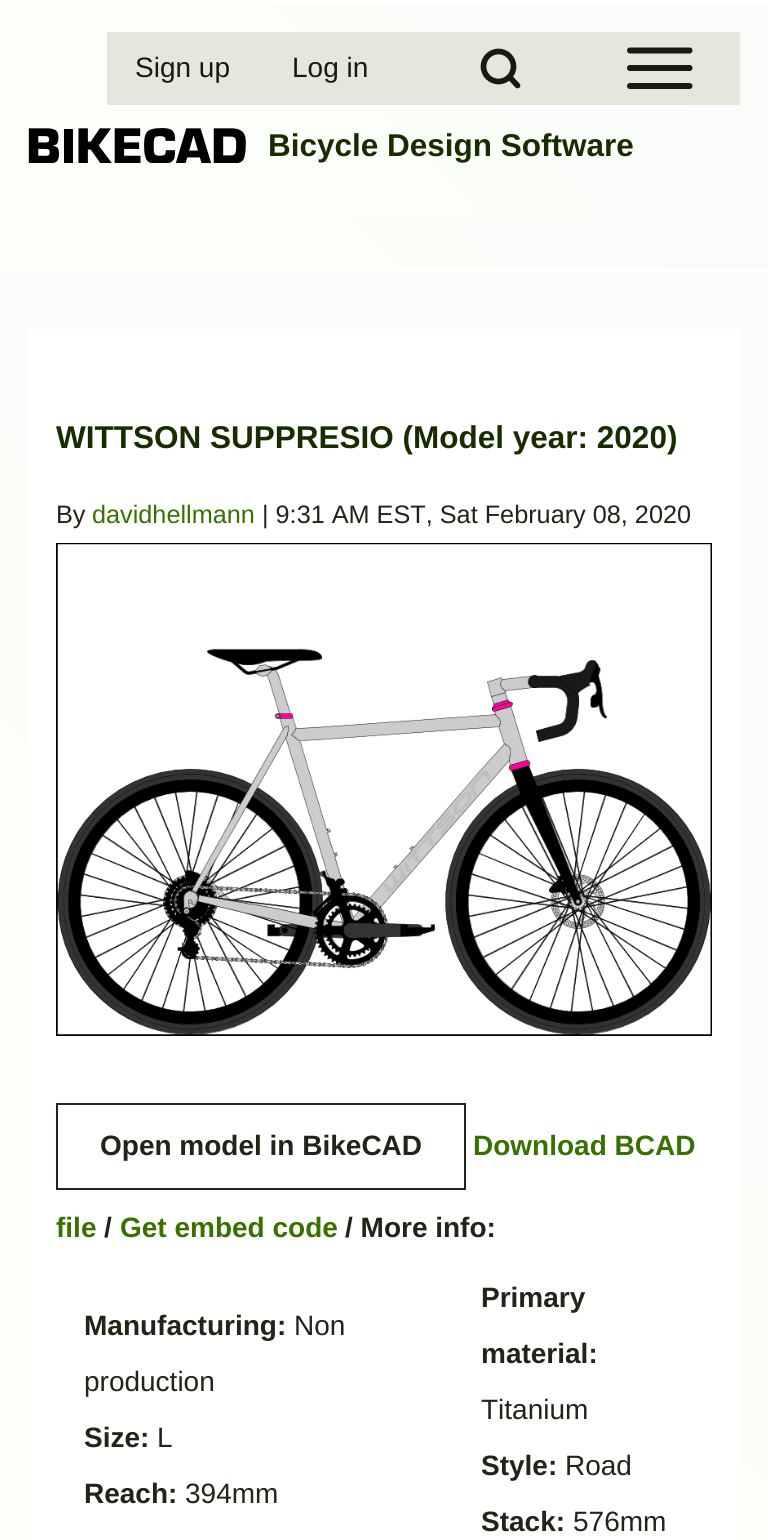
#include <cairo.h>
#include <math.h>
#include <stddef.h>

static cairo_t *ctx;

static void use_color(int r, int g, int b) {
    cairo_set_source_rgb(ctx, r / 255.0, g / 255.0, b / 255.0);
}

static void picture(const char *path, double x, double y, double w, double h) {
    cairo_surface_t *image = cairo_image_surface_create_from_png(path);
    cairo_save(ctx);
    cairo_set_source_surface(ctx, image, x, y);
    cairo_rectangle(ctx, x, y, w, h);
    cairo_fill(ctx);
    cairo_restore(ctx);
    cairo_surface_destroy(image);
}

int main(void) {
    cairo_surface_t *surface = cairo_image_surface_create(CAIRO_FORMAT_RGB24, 768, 1540);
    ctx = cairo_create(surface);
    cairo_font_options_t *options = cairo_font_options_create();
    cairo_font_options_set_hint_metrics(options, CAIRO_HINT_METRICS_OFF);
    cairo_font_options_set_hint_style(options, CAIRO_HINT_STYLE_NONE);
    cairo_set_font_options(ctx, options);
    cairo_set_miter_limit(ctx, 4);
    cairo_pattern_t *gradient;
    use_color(255, 255, 255);
    cairo_paint(ctx);
    gradient = cairo_pattern_create_linear(140, 353, 629, -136);
    cairo_pattern_add_color_stop_rgba(gradient, 0, 0.988, 1, 0.976, 1);
    cairo_pattern_add_color_stop_rgba(gradient, 1, 0.984, 0.988, 0.98, 1);
    cairo_set_source(ctx, gradient);
    cairo_pattern_destroy(gradient);
    cairo_rectangle(ctx, 0, 4, 768, 210);
    cairo_fill(ctx);
    use_color(229, 231, 220);
    cairo_rectangle(ctx, 422, 32, 318, 73);
    cairo_fill(ctx);
    cairo_arc(ctx, 498.5, 66.5, 15, 0, 2 * M_PI);
    use_color(24, 26, 17);
    cairo_set_line_width(ctx, 5.7);
    cairo_stroke(ctx);
    cairo_new_path(ctx);
    cairo_move_to(ctx, 517.5, 85.5);
    cairo_line_to(ctx, 509.5, 77);
    cairo_set_line_cap(ctx, CAIRO_LINE_CAP_ROUND);
    cairo_set_line_join(ctx, CAIRO_LINE_JOIN_ROUND);
    cairo_stroke(ctx);
    use_color(229, 231, 220);
    cairo_rectangle(ctx, 107, 32, 315, 73);
    cairo_fill(ctx);
    cairo_select_font_face(ctx, "Liberation Sans", CAIRO_FONT_SLANT_NORMAL, CAIRO_FONT_WEIGHT_NORMAL);
    cairo_set_font_size(ctx, 28);
    use_color(24, 26, 17);
    cairo_move_to(ctx, 135, 77);
    cairo_show_text(ctx, "Sign up");
    cairo_move_to(ctx, 292, 77);
    cairo_show_text(ctx, "Log in");
    cairo_new_path(ctx);
    cairo_move_to(ctx, 630, 86);
    cairo_line_to(ctx, 689.5, 86);
    cairo_close_path(ctx);
    cairo_set_line_width(ctx, 6);
    cairo_stroke(ctx);
    cairo_new_path(ctx);
    cairo_move_to(ctx, 630, 68);
    cairo_line_to(ctx, 689.5, 68);
    cairo_close_path(ctx);
    cairo_stroke(ctx);
    cairo_new_path(ctx);
    cairo_move_to(ctx, 630, 50.5);
    cairo_line_to(ctx, 689.5, 50.5);
    cairo_close_path(ctx);
    cairo_stroke(ctx);
    picture("img1.png", 28, 128, 218, 35);
    cairo_select_font_face(ctx, "Liberation Sans", CAIRO_FONT_SLANT_NORMAL, CAIRO_FONT_WEIGHT_BOLD);
    cairo_set_font_size(ctx, 31.5);
    use_color(23, 45, 0);
    cairo_move_to(ctx, 268, 156);
    cairo_show_text(ctx, "Bicycle Design Software");
    gradient = cairo_pattern_create_linear(178, 448, 590, 35);
    cairo_pattern_add_color_stop_rgba(gradient, 0, 0.988, 1, 0.976, 1);
    cairo_pattern_add_color_stop_rgba(gradient, 1, 0.984, 0.988, 0.98, 1);
    cairo_set_source(ctx, gradient);
    cairo_pattern_destroy(gradient);
    cairo_rectangle(ctx, 0, 214, 768, 56);
    cairo_fill(ctx);
    gradient = cairo_pattern_create_linear(-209, 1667, 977, 482);
    cairo_pattern_add_color_stop_rgba(gradient, 0, 0.988, 1, 0.976, 1);
    cairo_pattern_add_color_stop_rgba(gradient, 1, 0.984, 0.988, 0.98, 1);
    cairo_set_source(ctx, gradient);
    cairo_pattern_destroy(gradient);
    cairo_rectangle(ctx, 0, 273, 768, 1267);
    cairo_fill(ctx);
    use_color(255, 255, 255);
    cairo_rectangle(ctx, 28, 329, 712, 1211);
    cairo_fill(ctx);
    use_color(23, 45, 0);
    cairo_move_to(ctx, 56, 448);
    cairo_show_text(ctx, "WITTSON SUPPRESIO (Model year: 2020)");
    cairo_select_font_face(ctx, "Liberation Sans", CAIRO_FONT_SLANT_NORMAL, CAIRO_FONT_WEIGHT_NORMAL);
    cairo_set_font_size(ctx, 25.25);
    use_color(34, 36, 24);
    cairo_move_to(ctx, 56, 523);
    cairo_show_text(ctx, "By");
    use_color(57, 113, 0);
    cairo_move_to(ctx, 92, 523);
    cairo_show_text(ctx, "davidhellmann");
    use_color(34, 36, 24);
    cairo_move_to(ctx, 262, 523);
    cairo_show_text(ctx, "| 9:31 AM EST, Sat February 08, 2020");
    cairo_rectangle(ctx, 57, 544, 654, 491);
    use_color(0, 0, 0);
    cairo_set_line_width(ctx, 2);
    cairo_set_line_cap(ctx, CAIRO_LINE_CAP_BUTT);
    cairo_set_line_join(ctx, CAIRO_LINE_JOIN_MITER);
    cairo_stroke(ctx);
    picture("img2.png", 57, 544, 654, 491);
    cairo_rectangle(ctx, 57, 1104, 408, 85);
    use_color(34, 36, 24);
    cairo_stroke(ctx);
    cairo_select_font_face(ctx, "Liberation Sans", CAIRO_FONT_SLANT_NORMAL, CAIRO_FONT_WEIGHT_BOLD);
    cairo_set_font_size(ctx, 28);
    cairo_move_to(ctx, 100, 1155);
    cairo_show_text(ctx, "Open model in BikeCAD");
    use_color(57, 113, 0);
    cairo_move_to(ctx, 473, 1155);
    cairo_show_text(ctx, "Download BCAD");
    cairo_move_to(ctx, 56, 1237);
    cairo_show_text(ctx, "file");
    use_color(34, 36, 24);
    cairo_move_to(ctx, 104, 1237);
    cairo_show_text(ctx, "/");
    use_color(57, 113, 0);
    cairo_move_to(ctx, 120, 1237);
    cairo_show_text(ctx, "Get embed code");
    use_color(34, 36, 24);
    cairo_move_to(ctx, 345, 1237);
    cairo_show_text(ctx, "/ More info:");
    cairo_move_to(ctx, 84, 1335);
    cairo_show_text(ctx, "Manufacturing:");
    cairo_select_font_face(ctx, "Liberation Sans", CAIRO_FONT_SLANT_NORMAL, CAIRO_FONT_WEIGHT_NORMAL);
    cairo_move_to(ctx, 294, 1335);
    cairo_show_text(ctx, "Non");
    cairo_move_to(ctx, 84, 1391);
    cairo_show_text(ctx, "production");
    cairo_select_font_face(ctx, "Liberation Sans", CAIRO_FONT_SLANT_NORMAL, CAIRO_FONT_WEIGHT_BOLD);
    cairo_move_to(ctx, 84, 1447);
    cairo_show_text(ctx, "Size:");
    cairo_select_font_face(ctx, "Liberation Sans", CAIRO_FONT_SLANT_NORMAL, CAIRO_FONT_WEIGHT_NORMAL);
    cairo_move_to(ctx, 157, 1447);
    cairo_show_text(ctx, "L");
    cairo_select_font_face(ctx, "Liberation Sans", CAIRO_FONT_SLANT_NORMAL, CAIRO_FONT_WEIGHT_BOLD);
    cairo_move_to(ctx, 84, 1503);
    cairo_show_text(ctx, "Reach:");
    cairo_select_font_face(ctx, "Liberation Sans", CAIRO_FONT_SLANT_NORMAL, CAIRO_FONT_WEIGHT_NORMAL);
    cairo_move_to(ctx, 185, 1503);
    cairo_show_text(ctx, "394mm");
    cairo_select_font_face(ctx, "Liberation Sans", CAIRO_FONT_SLANT_NORMAL, CAIRO_FONT_WEIGHT_BOLD);
    cairo_move_to(ctx, 481, 1307);
    cairo_show_text(ctx, "Primary");
    cairo_move_to(ctx, 481, 1363);
    cairo_show_text(ctx, "material:");
    cairo_select_font_face(ctx, "Liberation Sans", CAIRO_FONT_SLANT_NORMAL, CAIRO_FONT_WEIGHT_NORMAL);
    cairo_move_to(ctx, 481, 1419);
    cairo_show_text(ctx, "Titanium");
    cairo_select_font_face(ctx, "Liberation Sans", CAIRO_FONT_SLANT_NORMAL, CAIRO_FONT_WEIGHT_BOLD);
    cairo_move_to(ctx, 481, 1475);
    cairo_show_text(ctx, "Style:");
    cairo_select_font_face(ctx, "Liberation Sans", CAIRO_FONT_SLANT_NORMAL, CAIRO_FONT_WEIGHT_NORMAL);
    cairo_move_to(ctx, 565, 1475);
    cairo_show_text(ctx, "Road");
    cairo_select_font_face(ctx, "Liberation Sans", CAIRO_FONT_SLANT_NORMAL, CAIRO_FONT_WEIGHT_BOLD);
    cairo_move_to(ctx, 481, 1531);
    cairo_show_text(ctx, "Stack:");
    cairo_select_font_face(ctx, "Liberation Sans", CAIRO_FONT_SLANT_NORMAL, CAIRO_FONT_WEIGHT_NORMAL);
    cairo_move_to(ctx, 573, 1531);
    cairo_show_text(ctx, "576mm");
    cairo_surface_write_to_png(surface, "result.png");
    cairo_font_options_destroy(options);
    cairo_destroy(ctx);
    cairo_surface_destroy(surface);
    return 0;
}
